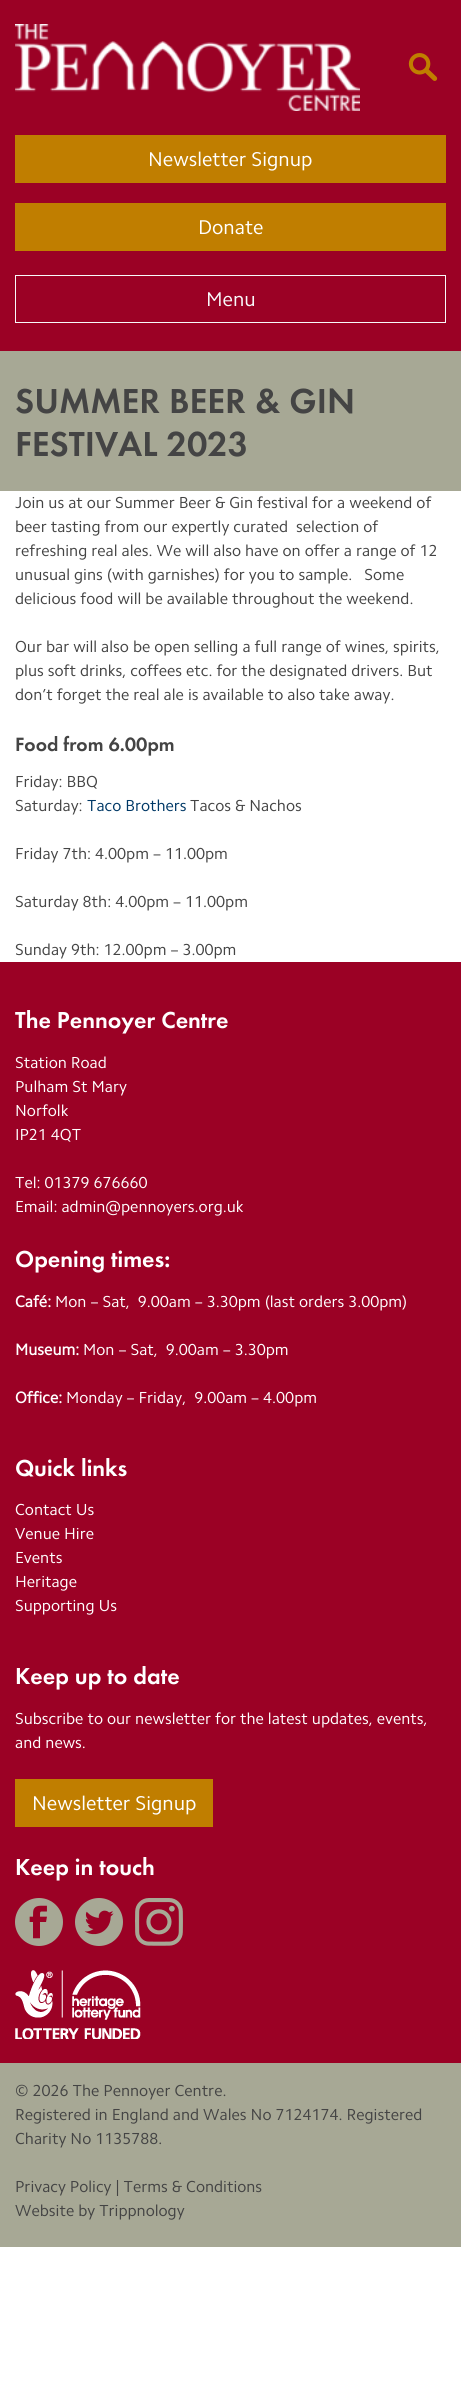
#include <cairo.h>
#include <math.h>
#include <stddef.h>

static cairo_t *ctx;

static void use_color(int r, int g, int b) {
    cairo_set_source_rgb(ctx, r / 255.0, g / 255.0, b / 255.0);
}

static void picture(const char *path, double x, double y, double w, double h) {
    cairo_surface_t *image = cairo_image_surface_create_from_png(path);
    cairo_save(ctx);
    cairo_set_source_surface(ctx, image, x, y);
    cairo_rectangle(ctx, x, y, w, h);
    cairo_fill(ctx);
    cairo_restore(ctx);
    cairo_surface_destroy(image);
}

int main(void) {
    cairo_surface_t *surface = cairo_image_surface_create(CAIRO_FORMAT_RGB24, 461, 2406);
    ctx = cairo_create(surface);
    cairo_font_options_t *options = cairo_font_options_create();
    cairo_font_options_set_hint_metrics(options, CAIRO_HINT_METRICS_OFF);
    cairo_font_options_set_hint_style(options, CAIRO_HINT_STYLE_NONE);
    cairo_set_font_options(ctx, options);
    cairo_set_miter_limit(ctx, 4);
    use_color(255, 255, 255);
    cairo_paint(ctx);
    use_color(155, 1, 37);
    cairo_rectangle(ctx, 0, 0, 461, 351);
    cairo_fill(ctx);
    picture("img1.png", 15, 24, 345, 87);
    picture("img2.png", 408, 53, 30, 28);
    use_color(192, 126, 0);
    cairo_rectangle(ctx, 15, 135, 431, 48);
    cairo_fill(ctx);
    cairo_select_font_face(ctx, "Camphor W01", CAIRO_FONT_SLANT_NORMAL, CAIRO_FONT_WEIGHT_NORMAL);
    cairo_set_font_size(ctx, 20);
    use_color(255, 255, 255);
    cairo_move_to(ctx, 148, 166);
    cairo_show_text(ctx, "Newsletter Signup");
    use_color(192, 126, 0);
    cairo_rectangle(ctx, 15, 203, 431, 48);
    cairo_fill(ctx);
    use_color(255, 255, 255);
    cairo_move_to(ctx, 198, 234);
    cairo_show_text(ctx, "Donate");
    cairo_rectangle(ctx, 15.5, 275.5, 430, 47);
    use_color(248, 249, 250);
    cairo_set_line_width(ctx, 1);
    cairo_stroke(ctx);
    cairo_move_to(ctx, 206, 306);
    cairo_show_text(ctx, "Menu");
    use_color(167, 168, 149);
    cairo_rectangle(ctx, 0, 351, 461, 140);
    cairo_fill(ctx);
    cairo_select_font_face(ctx, "Futura", CAIRO_FONT_SLANT_NORMAL, CAIRO_FONT_WEIGHT_NORMAL);
    cairo_set_font_size(ctx, 36);
    use_color(68, 68, 68);
    cairo_move_to(ctx, 15, 413);
    cairo_show_text(ctx, "SUMMER BEER & GIN");
    cairo_move_to(ctx, 15, 456);
    cairo_show_text(ctx, "FESTIVAL 2023");
    cairo_select_font_face(ctx, "Camphor W01", CAIRO_FONT_SLANT_NORMAL, CAIRO_FONT_WEIGHT_NORMAL);
    cairo_set_font_size(ctx, 16);
    cairo_move_to(ctx, 15, 508);
    cairo_show_text(ctx, "Join us at our Summer Beer & Gin festival for a weekend of");
    cairo_move_to(ctx, 15, 532);
    cairo_show_text(ctx, "beer tasting from our expertly curated  selection of");
    cairo_move_to(ctx, 15, 556);
    cairo_show_text(ctx, "refreshing real ales. We will also have on offer a range of 12");
    cairo_move_to(ctx, 15, 580);
    cairo_show_text(ctx, "unusual gins (with garnishes) for you to sample.   Some");
    cairo_move_to(ctx, 15, 604);
    cairo_show_text(ctx, "delicious food will be available throughout the weekend.");
    cairo_move_to(ctx, 15, 652);
    cairo_show_text(ctx, "Our bar will also be open selling a full range of wines, spirits,");
    cairo_move_to(ctx, 15, 676);
    cairo_show_text(ctx, "plus soft drinks, coffees etc. for the designated drivers. But");
    cairo_move_to(ctx, 15, 700);
    cairo_show_text(ctx, "don’t forget the real ale is available to also take away.");
    cairo_select_font_face(ctx, "Futura", CAIRO_FONT_SLANT_NORMAL, CAIRO_FONT_WEIGHT_NORMAL);
    cairo_set_font_size(ctx, 20);
    cairo_move_to(ctx, 15, 751);
    cairo_show_text(ctx, "Food from 6.00pm");
    cairo_select_font_face(ctx, "Camphor W01", CAIRO_FONT_SLANT_NORMAL, CAIRO_FONT_WEIGHT_NORMAL);
    cairo_set_font_size(ctx, 16);
    cairo_move_to(ctx, 15, 787);
    cairo_show_text(ctx, "Friday: BBQ");
    cairo_move_to(ctx, 15, 811);
    cairo_show_text(ctx, "Saturday:");
    use_color(0, 56, 102);
    cairo_move_to(ctx, 87, 811);
    cairo_show_text(ctx, "Taco Brothers");
    use_color(68, 68, 68);
    cairo_move_to(ctx, 190, 811);
    cairo_show_text(ctx, "Tacos & Nachos");
    cairo_move_to(ctx, 15, 859);
    cairo_show_text(ctx, "Friday 7th: 4.00pm – 11.00pm");
    cairo_move_to(ctx, 15, 907);
    cairo_show_text(ctx, "Saturday 8th: 4.00pm – 11.00pm");
    cairo_move_to(ctx, 15, 955);
    cairo_show_text(ctx, "Sunday 9th: 12.00pm – 3.00pm");
    use_color(155, 1, 37);
    cairo_rectangle(ctx, 0, 962, 461, 1101);
    cairo_fill(ctx);
    cairo_select_font_face(ctx, "Futura", CAIRO_FONT_SLANT_NORMAL, CAIRO_FONT_WEIGHT_NORMAL);
    cairo_set_font_size(ctx, 24);
    use_color(255, 255, 255);
    cairo_move_to(ctx, 15, 1028);
    cairo_show_text(ctx, "The Pennoyer Centre");
    cairo_select_font_face(ctx, "Camphor W01", CAIRO_FONT_SLANT_NORMAL, CAIRO_FONT_WEIGHT_NORMAL);
    cairo_set_font_size(ctx, 16);
    cairo_move_to(ctx, 15, 1068);
    cairo_show_text(ctx, "Station Road");
    cairo_move_to(ctx, 15, 1092);
    cairo_show_text(ctx, "Pulham St Mary");
    cairo_move_to(ctx, 15, 1116);
    cairo_show_text(ctx, "Norfolk");
    cairo_move_to(ctx, 15, 1140);
    cairo_show_text(ctx, "IP21 4QT");
    cairo_move_to(ctx, 15, 1188);
    cairo_show_text(ctx, "Tel: 01379 676660");
    cairo_move_to(ctx, 15, 1212);
    cairo_show_text(ctx, "Email: admin@pennoyers.org.uk");
    cairo_select_font_face(ctx, "Futura", CAIRO_FONT_SLANT_NORMAL, CAIRO_FONT_WEIGHT_NORMAL);
    cairo_set_font_size(ctx, 24);
    cairo_move_to(ctx, 15, 1267);
    cairo_show_text(ctx, "Opening times:");
    cairo_select_font_face(ctx, "Camphor W01", CAIRO_FONT_SLANT_NORMAL, CAIRO_FONT_WEIGHT_BOLD);
    cairo_set_font_size(ctx, 16);
    cairo_move_to(ctx, 15, 1307);
    cairo_show_text(ctx, "Café:");
    cairo_select_font_face(ctx, "Camphor W01", CAIRO_FONT_SLANT_NORMAL, CAIRO_FONT_WEIGHT_NORMAL);
    cairo_move_to(ctx, 55, 1307);
    cairo_show_text(ctx, "Mon – Sat,  9.00am – 3.30pm (last orders 3.00pm)");
    cairo_select_font_face(ctx, "Camphor W01", CAIRO_FONT_SLANT_NORMAL, CAIRO_FONT_WEIGHT_BOLD);
    cairo_move_to(ctx, 15, 1355);
    cairo_show_text(ctx, "Museum:");
    cairo_select_font_face(ctx, "Camphor W01", CAIRO_FONT_SLANT_NORMAL, CAIRO_FONT_WEIGHT_NORMAL);
    cairo_move_to(ctx, 83, 1355);
    cairo_show_text(ctx, "Mon – Sat,  9.00am – 3.30pm");
    cairo_select_font_face(ctx, "Camphor W01", CAIRO_FONT_SLANT_NORMAL, CAIRO_FONT_WEIGHT_BOLD);
    cairo_move_to(ctx, 15, 1403);
    cairo_show_text(ctx, "Office:");
    cairo_select_font_face(ctx, "Camphor W01", CAIRO_FONT_SLANT_NORMAL, CAIRO_FONT_WEIGHT_NORMAL);
    cairo_move_to(ctx, 66, 1403);
    cairo_show_text(ctx, "Monday – Friday,  9.00am – 4.00pm");
    cairo_select_font_face(ctx, "Futura", CAIRO_FONT_SLANT_NORMAL, CAIRO_FONT_WEIGHT_NORMAL);
    cairo_set_font_size(ctx, 24);
    cairo_move_to(ctx, 15, 1476);
    cairo_show_text(ctx, "Quick links");
    cairo_select_font_face(ctx, "Camphor W01", CAIRO_FONT_SLANT_NORMAL, CAIRO_FONT_WEIGHT_NORMAL);
    cairo_set_font_size(ctx, 16);
    cairo_move_to(ctx, 15, 1515);
    cairo_show_text(ctx, "Contact Us");
    cairo_move_to(ctx, 15, 1539);
    cairo_show_text(ctx, "Venue Hire");
    cairo_move_to(ctx, 15, 1563);
    cairo_show_text(ctx, "Events");
    cairo_move_to(ctx, 15, 1587);
    cairo_show_text(ctx, "Heritage");
    cairo_move_to(ctx, 15, 1611);
    cairo_show_text(ctx, "Supporting Us");
    cairo_select_font_face(ctx, "Futura", CAIRO_FONT_SLANT_NORMAL, CAIRO_FONT_WEIGHT_NORMAL);
    cairo_set_font_size(ctx, 24);
    cairo_move_to(ctx, 15, 1684);
    cairo_show_text(ctx, "Keep up to date");
    cairo_select_font_face(ctx, "Camphor W01", CAIRO_FONT_SLANT_NORMAL, CAIRO_FONT_WEIGHT_NORMAL);
    cairo_set_font_size(ctx, 16);
    cairo_move_to(ctx, 15, 1724);
    cairo_show_text(ctx, "Subscribe to our newsletter for the latest updates, events,");
    cairo_move_to(ctx, 15, 1748);
    cairo_show_text(ctx, "and news.");
    use_color(192, 126, 0);
    cairo_rectangle(ctx, 15, 1779, 198, 48);
    cairo_fill(ctx);
    cairo_set_font_size(ctx, 20);
    use_color(255, 255, 255);
    cairo_move_to(ctx, 32, 1810);
    cairo_show_text(ctx, "Newsletter Signup");
    cairo_select_font_face(ctx, "Futura", CAIRO_FONT_SLANT_NORMAL, CAIRO_FONT_WEIGHT_NORMAL);
    cairo_set_font_size(ctx, 24);
    cairo_move_to(ctx, 15, 1875);
    cairo_show_text(ctx, "Keep in touch");
    picture("img3.png", 15, 1898, 48, 48);
    picture("img4.png", 75, 1898, 48, 48);
    picture("img5.png", 135, 1898, 48, 48);
    picture("img6.png", 15, 1970, 126, 69);
    use_color(167, 168, 149);
    cairo_rectangle(ctx, 0, 2063, 461, 184);
    cairo_fill(ctx);
    cairo_select_font_face(ctx, "Camphor W01", CAIRO_FONT_SLANT_NORMAL, CAIRO_FONT_WEIGHT_NORMAL);
    cairo_set_font_size(ctx, 16);
    use_color(68, 68, 68);
    cairo_move_to(ctx, 15, 2096);
    cairo_show_text(ctx, "© 2026 The Pennoyer Centre.");
    cairo_move_to(ctx, 15, 2120);
    cairo_show_text(ctx, "Registered in England and Wales No 7124174. Registered");
    cairo_move_to(ctx, 15, 2144);
    cairo_show_text(ctx, "Charity No 1135788.");
    cairo_move_to(ctx, 15, 2192);
    cairo_show_text(ctx, "Privacy Policy | Terms & Conditions");
    cairo_move_to(ctx, 15, 2216);
    cairo_show_text(ctx, "Website by Trippnology");
    cairo_surface_write_to_png(surface, "result.png");
    cairo_font_options_destroy(options);
    cairo_destroy(ctx);
    cairo_surface_destroy(surface);
    return 0;
}
